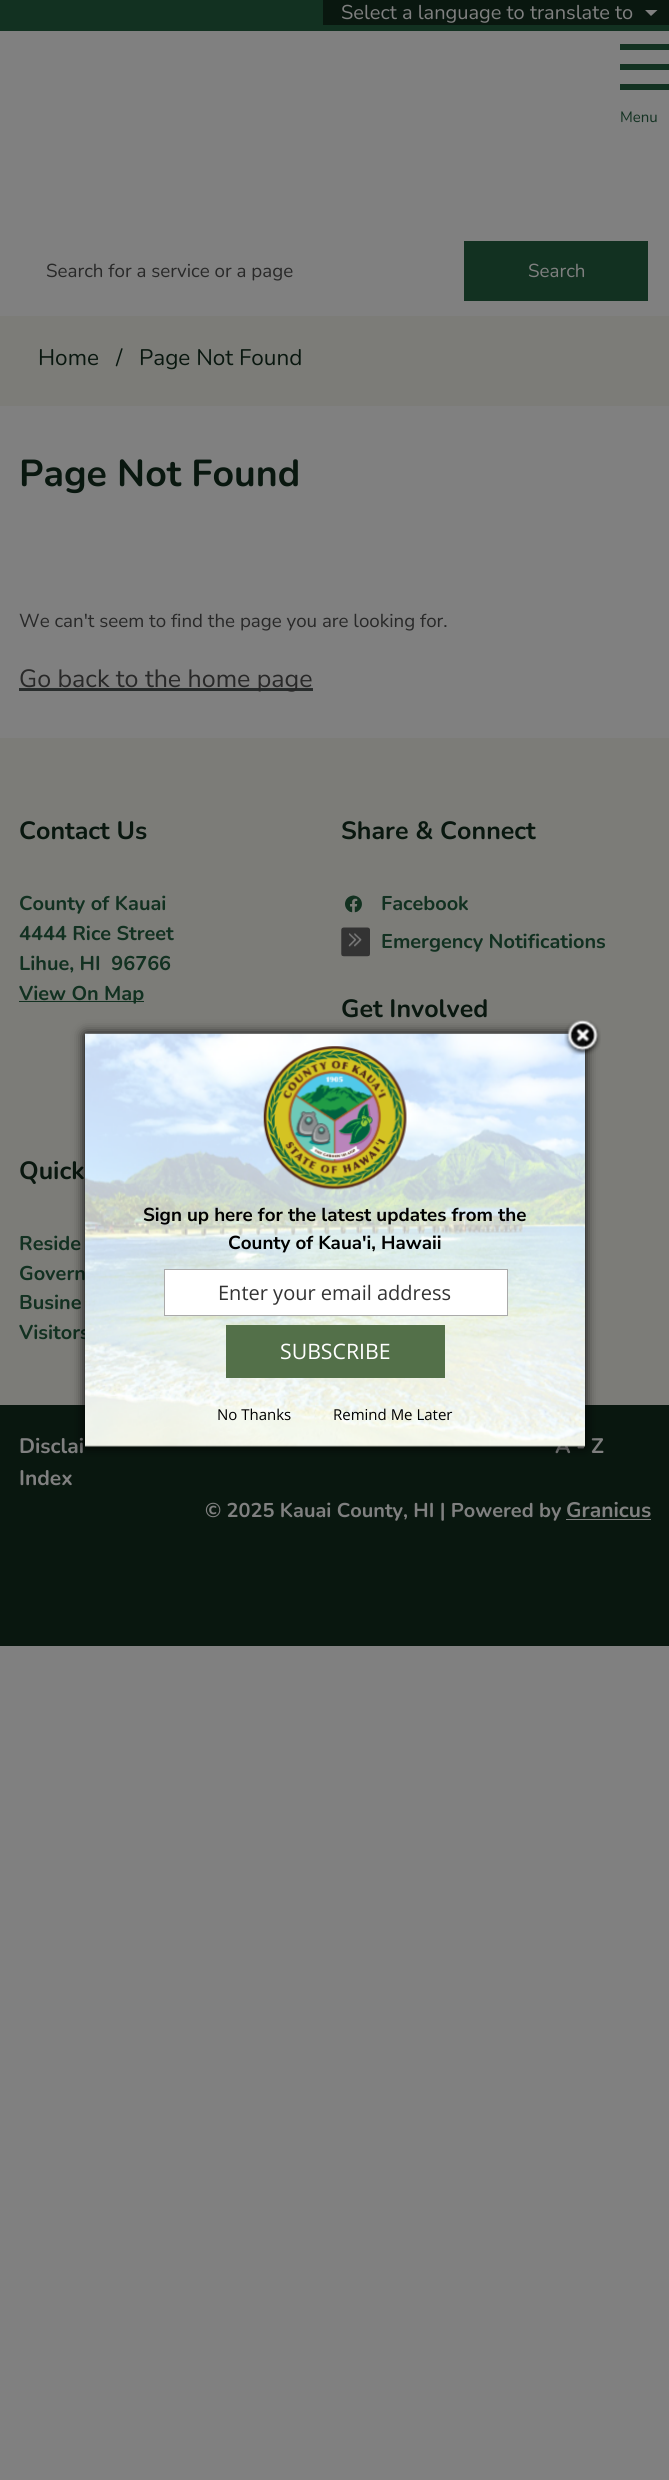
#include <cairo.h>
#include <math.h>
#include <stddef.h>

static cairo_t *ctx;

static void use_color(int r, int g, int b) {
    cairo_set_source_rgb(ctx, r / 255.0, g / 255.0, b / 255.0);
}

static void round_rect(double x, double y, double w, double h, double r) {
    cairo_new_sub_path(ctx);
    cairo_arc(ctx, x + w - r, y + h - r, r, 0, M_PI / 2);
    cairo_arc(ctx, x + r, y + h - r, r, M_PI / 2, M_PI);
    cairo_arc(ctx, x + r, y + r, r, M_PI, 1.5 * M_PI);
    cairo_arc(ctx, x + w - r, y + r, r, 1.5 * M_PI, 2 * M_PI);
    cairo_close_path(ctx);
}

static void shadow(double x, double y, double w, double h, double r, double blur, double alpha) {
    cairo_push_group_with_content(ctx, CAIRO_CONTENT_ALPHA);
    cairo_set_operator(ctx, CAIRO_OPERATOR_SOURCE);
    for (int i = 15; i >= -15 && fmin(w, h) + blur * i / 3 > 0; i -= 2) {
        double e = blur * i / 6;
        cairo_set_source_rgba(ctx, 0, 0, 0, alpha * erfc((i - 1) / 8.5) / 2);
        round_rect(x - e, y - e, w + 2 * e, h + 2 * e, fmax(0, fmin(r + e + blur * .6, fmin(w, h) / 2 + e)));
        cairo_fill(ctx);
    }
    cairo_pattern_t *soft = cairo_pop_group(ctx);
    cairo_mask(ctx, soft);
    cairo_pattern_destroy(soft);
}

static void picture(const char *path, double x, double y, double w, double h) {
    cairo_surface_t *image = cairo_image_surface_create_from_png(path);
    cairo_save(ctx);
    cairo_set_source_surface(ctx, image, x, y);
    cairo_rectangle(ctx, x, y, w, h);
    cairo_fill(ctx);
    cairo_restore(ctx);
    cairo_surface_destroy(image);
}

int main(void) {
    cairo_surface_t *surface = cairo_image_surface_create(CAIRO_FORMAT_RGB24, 669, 2480);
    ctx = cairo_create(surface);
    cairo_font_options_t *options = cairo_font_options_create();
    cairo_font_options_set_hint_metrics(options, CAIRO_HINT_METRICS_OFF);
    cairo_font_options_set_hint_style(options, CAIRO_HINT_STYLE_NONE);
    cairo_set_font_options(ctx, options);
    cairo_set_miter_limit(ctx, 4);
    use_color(128, 128, 128);
    cairo_paint(ctx);
    use_color(18, 49, 33);
    cairo_rectangle(ctx, 0, 0, 669, 31);
    cairo_fill(ctx);
    use_color(9, 23, 15);
    cairo_rectangle(ctx, 323, 0, 346, 25);
    cairo_fill(ctx);
    cairo_select_font_face(ctx, "Nunito", CAIRO_FONT_SLANT_NORMAL, CAIRO_FONT_WEIGHT_NORMAL);
    cairo_set_font_size(ctx, 20);
    use_color(128, 128, 128);
    cairo_move_to(ctx, 341, 19);
    cairo_show_text(ctx, "Select a language to translate to");
    cairo_new_path(ctx);
    cairo_move_to(ctx, 645, 10);
    cairo_line_to(ctx, 657.5, 10);
    cairo_line_to(ctx, 651, 16);
    cairo_close_path(ctx);
    cairo_fill(ctx);
    use_color(18, 49, 33);
    cairo_rectangle(ctx, 620, 64, 49, 6);
    cairo_fill(ctx);
    cairo_rectangle(ctx, 620, 44, 49, 6);
    cairo_fill(ctx);
    cairo_rectangle(ctx, 620, 84, 49, 6);
    cairo_fill(ctx);
    cairo_set_font_size(ctx, 15);
    cairo_move_to(ctx, 620, 122);
    cairo_show_text(ctx, "Menu");
    cairo_set_font_size(ctx, 18.75);
    use_color(40, 40, 40);
    cairo_move_to(ctx, 46, 277);
    cairo_show_text(ctx, "Search for a service or a page");
    use_color(18, 49, 33);
    cairo_rectangle(ctx, 464, 241, 184, 60);
    cairo_fill(ctx);
    use_color(128, 128, 128);
    cairo_move_to(ctx, 528, 277);
    cairo_show_text(ctx, "Search");
    use_color(124, 124, 120);
    cairo_rectangle(ctx, 0, 316, 669, 90);
    cairo_fill(ctx);
    cairo_set_font_size(ctx, 22.5);
    use_color(9, 23, 15);
    cairo_move_to(ctx, 38, 365);
    cairo_show_text(ctx, "Home");
    cairo_move_to(ctx, 116, 365);
    cairo_show_text(ctx, "/");
    cairo_move_to(ctx, 139, 365);
    cairo_show_text(ctx, "Page Not Found");
    cairo_select_font_face(ctx, "Nunito", CAIRO_FONT_SLANT_NORMAL, CAIRO_FONT_WEIGHT_BOLD);
    cairo_set_font_size(ctx, 37.5);
    cairo_move_to(ctx, 19, 486);
    cairo_show_text(ctx, "Page Not Found");
    cairo_select_font_face(ctx, "Nunito Sans", CAIRO_FONT_SLANT_NORMAL, CAIRO_FONT_WEIGHT_NORMAL);
    cairo_set_font_size(ctx, 18.75);
    use_color(40, 40, 40);
    cairo_move_to(ctx, 19, 627);
    cairo_show_text(ctx, "We can't seem to find the page you are looking for.");
    use_color(40, 44, 44);
    cairo_rectangle(ctx, 19, 688, 294, 3);
    cairo_fill(ctx);
    cairo_set_font_size(ctx, 25);
    use_color(40, 40, 40);
    cairo_move_to(ctx, 19, 687);
    cairo_show_text(ctx, "Go back to the home page");
    use_color(124, 124, 120);
    cairo_rectangle(ctx, 0, 738, 669, 667);
    cairo_fill(ctx);
    cairo_select_font_face(ctx, "Nunito", CAIRO_FONT_SLANT_NORMAL, CAIRO_FONT_WEIGHT_BOLD);
    use_color(9, 23, 15);
    cairo_move_to(ctx, 19, 839);
    cairo_show_text(ctx, "Contact Us");
    cairo_set_font_size(ctx, 19.9);
    use_color(18, 49, 33);
    cairo_move_to(ctx, 19, 910);
    cairo_show_text(ctx, "County of Kauai");
    cairo_move_to(ctx, 19, 940);
    cairo_show_text(ctx, "4444 Rice Street");
    cairo_move_to(ctx, 19, 970);
    cairo_show_text(ctx, "Lihue, HI  96766");
    cairo_rectangle(ctx, 19, 1001, 125, 1);
    cairo_fill(ctx);
    cairo_move_to(ctx, 19, 1000);
    cairo_show_text(ctx, "View On Map");
    cairo_set_font_size(ctx, 25);
    use_color(9, 23, 15);
    cairo_move_to(ctx, 341, 839);
    cairo_show_text(ctx, "Share & Connect");
    picture("img1.png", 345, 895, 17, 18);
    cairo_set_font_size(ctx, 19.9);
    use_color(18, 49, 33);
    cairo_move_to(ctx, 381, 910);
    cairo_show_text(ctx, "Facebook");
    picture("img2.png", 341, 927, 29, 30);
    cairo_move_to(ctx, 381, 948);
    cairo_show_text(ctx, "Emergency Notifications");
    cairo_set_font_size(ctx, 25);
    use_color(9, 23, 15);
    cairo_move_to(ctx, 341, 1017);
    cairo_show_text(ctx, "Get Involved");
    cairo_move_to(ctx, 19, 1179);
    cairo_show_text(ctx, "Quick");
    cairo_set_font_size(ctx, 19.9);
    use_color(18, 49, 33);
    cairo_move_to(ctx, 19, 1250);
    cairo_show_text(ctx, "Reside");
    cairo_move_to(ctx, 19, 1280);
    cairo_show_text(ctx, "Govern");
    cairo_move_to(ctx, 19, 1309);
    cairo_show_text(ctx, "Busine");
    cairo_move_to(ctx, 19, 1339);
    cairo_show_text(ctx, "Visitors");
    use_color(9, 23, 15);
    cairo_rectangle(ctx, 0, 1405, 669, 241);
    cairo_fill(ctx);
    cairo_set_font_size(ctx, 21);
    use_color(128, 128, 128);
    cairo_move_to(ctx, 19, 1453);
    cairo_show_text(ctx, "Disclai");
    cairo_move_to(ctx, 555, 1453);
    cairo_show_text(ctx, "A - Z");
    cairo_move_to(ctx, 19, 1485);
    cairo_show_text(ctx, "Index");
    cairo_set_font_size(ctx, 19.9);
    cairo_move_to(ctx, 205, 1517);
    cairo_show_text(ctx, "© 2025 Kauai County, HI | Powered by");
    cairo_set_font_size(ctx, 21);
    cairo_move_to(ctx, 566, 1517);
    cairo_show_text(ctx, "Granicus");
    cairo_rectangle(ctx, 566, 1519, 85, 1);
    cairo_fill(ctx);
    use_color(0, 0, 0);
    shadow(85, 1034, 500, 412, 0, 6, 1);
    picture("img3.png", 85, 1033, 500, 414);
    picture("img4.png", 564, 1020, 37, 35);
    picture("img5.png", 263, 1046, 144, 144);
    cairo_select_font_face(ctx, "Nunito Sans", CAIRO_FONT_SLANT_NORMAL, CAIRO_FONT_WEIGHT_BOLD);
    cairo_set_font_size(ctx, 18.75);
    use_color(0, 0, 0);
    cairo_move_to(ctx, 143, 1221);
    cairo_show_text(ctx, "Sign up here for the latest updates from the");
    cairo_move_to(ctx, 228, 1249);
    cairo_show_text(ctx, "County of Kaua'i, Hawaii");
    use_color(255, 255, 255);
    cairo_rectangle(ctx, 164.5, 1269.5, 343, 46);
    cairo_fill_preserve(ctx);
    use_color(170, 170, 170);
    cairo_set_line_width(ctx, 1);
    cairo_stroke(ctx);
    cairo_select_font_face(ctx, "Open Sans", CAIRO_FONT_SLANT_NORMAL, CAIRO_FONT_WEIGHT_NORMAL);
    cairo_set_font_size(ctx, 20);
    use_color(51, 51, 51);
    cairo_move_to(ctx, 218, 1300);
    cairo_show_text(ctx, "Enter your email address");
    use_color(83, 112, 73);
    cairo_rectangle(ctx, 226, 1325, 219, 53);
    cairo_fill(ctx);
    cairo_set_font_size(ctx, 21.25);
    use_color(255, 255, 255);
    cairo_move_to(ctx, 280, 1359);
    cairo_show_text(ctx, "SUBSCRIBE");
    cairo_set_font_size(ctx, 15);
    use_color(0, 0, 0);
    cairo_move_to(ctx, 217, 1420);
    cairo_show_text(ctx, "No Thanks");
    cairo_move_to(ctx, 333, 1420);
    cairo_show_text(ctx, "Remind Me Later");
    cairo_surface_write_to_png(surface, "result.png");
    cairo_font_options_destroy(options);
    cairo_destroy(ctx);
    cairo_surface_destroy(surface);
    return 0;
}
